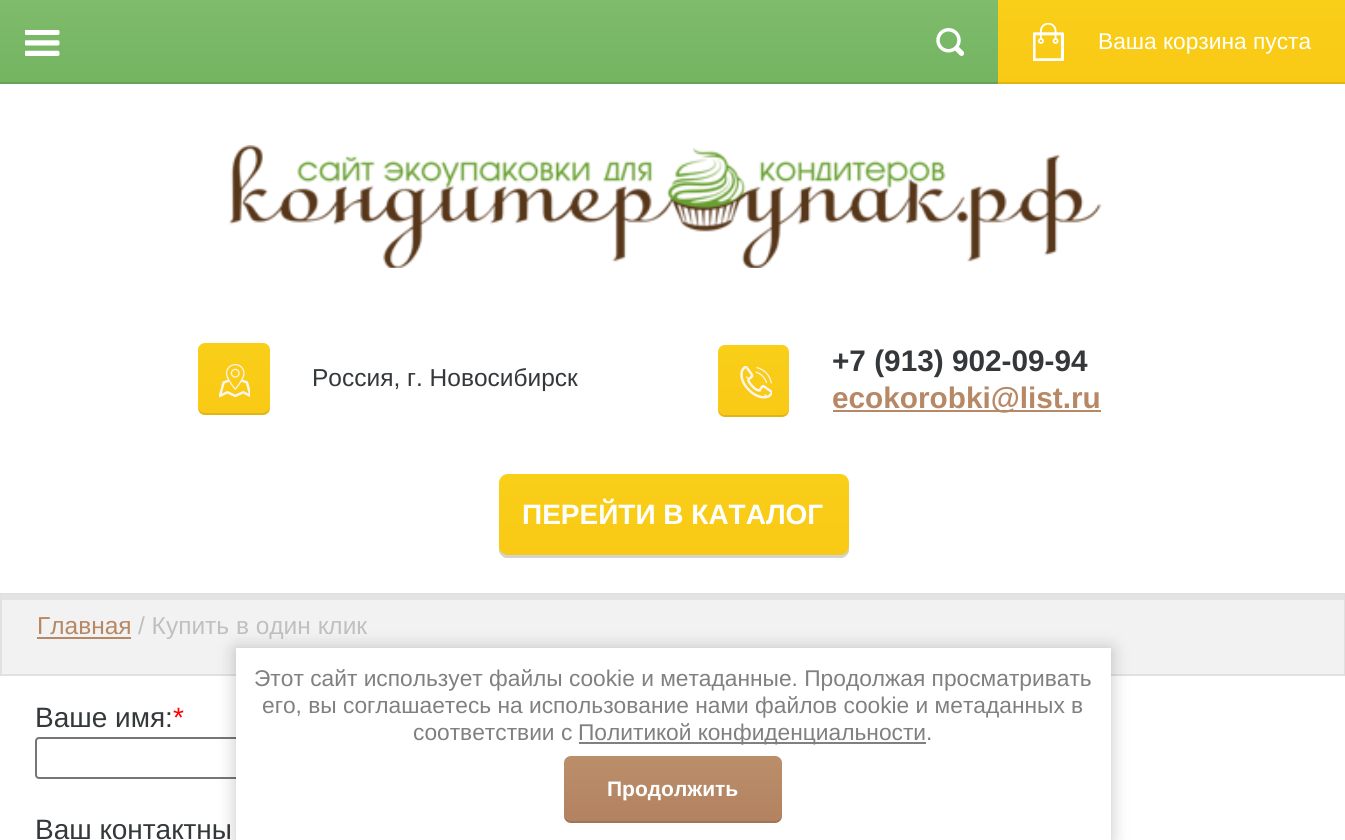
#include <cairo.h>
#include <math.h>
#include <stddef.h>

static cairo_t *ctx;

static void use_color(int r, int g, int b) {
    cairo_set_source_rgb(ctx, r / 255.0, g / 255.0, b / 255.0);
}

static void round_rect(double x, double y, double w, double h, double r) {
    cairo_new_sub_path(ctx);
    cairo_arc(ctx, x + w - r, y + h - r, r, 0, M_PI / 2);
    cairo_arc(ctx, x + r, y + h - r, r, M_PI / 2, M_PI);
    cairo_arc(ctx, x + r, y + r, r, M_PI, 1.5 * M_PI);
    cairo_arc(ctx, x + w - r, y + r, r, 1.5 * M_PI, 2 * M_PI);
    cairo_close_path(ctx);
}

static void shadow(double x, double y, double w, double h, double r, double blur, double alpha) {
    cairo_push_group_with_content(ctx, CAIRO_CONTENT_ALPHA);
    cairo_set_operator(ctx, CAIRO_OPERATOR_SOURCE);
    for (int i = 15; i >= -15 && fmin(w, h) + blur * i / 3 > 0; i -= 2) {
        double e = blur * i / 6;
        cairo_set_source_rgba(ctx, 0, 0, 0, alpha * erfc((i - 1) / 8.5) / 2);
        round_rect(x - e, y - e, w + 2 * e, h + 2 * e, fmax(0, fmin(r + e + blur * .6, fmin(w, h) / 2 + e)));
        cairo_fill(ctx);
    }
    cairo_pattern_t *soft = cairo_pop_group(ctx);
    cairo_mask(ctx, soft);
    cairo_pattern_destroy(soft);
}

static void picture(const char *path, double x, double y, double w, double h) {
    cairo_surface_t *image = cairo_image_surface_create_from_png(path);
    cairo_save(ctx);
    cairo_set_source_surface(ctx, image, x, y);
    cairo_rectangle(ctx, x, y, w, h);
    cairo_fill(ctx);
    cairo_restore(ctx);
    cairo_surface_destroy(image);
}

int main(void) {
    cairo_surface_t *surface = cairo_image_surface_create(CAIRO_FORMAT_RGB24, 1345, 840);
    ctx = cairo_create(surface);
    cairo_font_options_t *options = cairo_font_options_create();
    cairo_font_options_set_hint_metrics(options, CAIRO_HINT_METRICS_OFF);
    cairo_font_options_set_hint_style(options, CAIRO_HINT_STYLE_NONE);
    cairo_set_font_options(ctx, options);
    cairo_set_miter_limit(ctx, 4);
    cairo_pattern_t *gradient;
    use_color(255, 255, 255);
    cairo_paint(ctx);
    gradient = cairo_pattern_create_linear(673, 84, 673, 0);
    cairo_pattern_add_color_stop_rgba(gradient, 0, 0.451, 0.706, 0.38, 1);
    cairo_pattern_add_color_stop_rgba(gradient, 1, 0.498, 0.737, 0.42, 1);
    cairo_set_source(ctx, gradient);
    cairo_pattern_destroy(gradient);
    cairo_rectangle(ctx, 0, 0, 998, 82);
    cairo_fill(ctx);
    picture("img1.png", 25, 30, 35, 26);
    use_color(104, 162, 87);
    cairo_rectangle(ctx, 0, 82, 998, 2);
    cairo_fill(ctx);
    picture("img2.png", 936, 28, 28, 28);
    gradient = cairo_pattern_create_linear(1172, 84, 1172, 0);
    cairo_pattern_add_color_stop_rgba(gradient, 0, 0.976, 0.788, 0.086, 1);
    cairo_pattern_add_color_stop_rgba(gradient, 1, 0.976, 0.812, 0.094, 1);
    cairo_set_source(ctx, gradient);
    cairo_pattern_destroy(gradient);
    cairo_rectangle(ctx, 998, 0, 347, 82);
    cairo_fill(ctx);
    use_color(224, 181, 20);
    cairo_rectangle(ctx, 998, 82, 347, 2);
    cairo_fill(ctx);
    picture("img3.png", 1033, 23, 31, 38);
    cairo_select_font_face(ctx, "Liberation Sans", CAIRO_FONT_SLANT_NORMAL, CAIRO_FONT_WEIGHT_NORMAL);
    cairo_set_font_size(ctx, 22.75);
    use_color(255, 255, 255);
    cairo_move_to(ctx, 1098, 49);
    cairo_show_text(ctx, "Ваша корзина пуста");
    picture("img4.png", 229, 145, 873, 123);
    gradient = cairo_pattern_create_linear(234, 415, 234, 343);
    cairo_pattern_add_color_stop_rgba(gradient, 0, 0.976, 0.788, 0.086, 1);
    cairo_pattern_add_color_stop_rgba(gradient, 1, 0.976, 0.812, 0.094, 1);
    cairo_set_source(ctx, gradient);
    cairo_pattern_destroy(gradient);
    round_rect(198, 343, 72, 72, 7);
    cairo_fill(ctx);
    cairo_set_source_rgba(ctx, 0, 0, 0, 0.1);
    cairo_new_path(ctx);
    cairo_move_to(ctx, 198, 406);
    cairo_curve_to(ctx, 198, 417, 206, 415, 215, 415);
    cairo_line_to(ctx, 253, 415);
    cairo_curve_to(ctx, 262, 415, 270, 417, 270, 406);
    cairo_curve_to(ctx, 270, 410, 266, 413, 262, 413);
    cairo_line_to(ctx, 205, 413);
    cairo_curve_to(ctx, 201, 413, 198, 410, 198, 406);
    cairo_close_path(ctx);
    cairo_fill(ctx);
    picture("img5.png", 219, 364, 31, 33);
    cairo_set_font_size(ctx, 24.5);
    use_color(52, 56, 58);
    cairo_move_to(ctx, 312, 386);
    cairo_show_text(ctx, "Россия, г. Новосибирск");
    gradient = cairo_pattern_create_linear(753, 417, 753, 345);
    cairo_pattern_add_color_stop_rgba(gradient, 0, 0.976, 0.788, 0.086, 1);
    cairo_pattern_add_color_stop_rgba(gradient, 1, 0.976, 0.812, 0.094, 1);
    cairo_set_source(ctx, gradient);
    cairo_pattern_destroy(gradient);
    round_rect(718, 345, 71, 72, 7);
    cairo_fill(ctx);
    cairo_set_source_rgba(ctx, 0, 0, 0, 0.1);
    cairo_new_path(ctx);
    cairo_move_to(ctx, 718, 408);
    cairo_curve_to(ctx, 718, 419, 726, 417, 734, 417);
    cairo_line_to(ctx, 772, 417);
    cairo_curve_to(ctx, 781, 417, 789, 419, 789, 408);
    cairo_curve_to(ctx, 789, 412, 786, 415, 782, 415);
    cairo_line_to(ctx, 724, 415);
    cairo_curve_to(ctx, 721, 415, 718, 412, 718, 408);
    cairo_close_path(ctx);
    cairo_fill(ctx);
    picture("img6.png", 740, 366, 32, 33);
    cairo_select_font_face(ctx, "Liberation Sans", CAIRO_FONT_SLANT_NORMAL, CAIRO_FONT_WEIGHT_BOLD);
    cairo_set_font_size(ctx, 29.75);
    use_color(52, 56, 58);
    cairo_move_to(ctx, 832, 371);
    cairo_show_text(ctx, "+7 (913) 902-09-94");
    use_color(183, 136, 101);
    cairo_rectangle(ctx, 833, 410, 268, 2);
    cairo_fill(ctx);
    cairo_move_to(ctx, 832, 408);
    cairo_show_text(ctx, "ecokorobki@list.ru");
    gradient = cairo_pattern_create_linear(674, 558, 674, 474);
    cairo_pattern_add_color_stop_rgba(gradient, 0, 0.976, 0.788, 0.086, 1);
    cairo_pattern_add_color_stop_rgba(gradient, 1, 0.976, 0.812, 0.094, 1);
    cairo_set_source(ctx, gradient);
    cairo_pattern_destroy(gradient);
    round_rect(499, 474, 350, 84, 9);
    cairo_fill(ctx);
    use_color(211, 211, 211);
    cairo_new_path(ctx);
    cairo_move_to(ctx, 499, 546);
    cairo_line_to(ctx, 499, 549);
    cairo_curve_to(ctx, 499, 554, 503, 558, 508, 558);
    cairo_line_to(ctx, 840, 558);
    cairo_curve_to(ctx, 845, 558, 849, 554, 849, 549);
    cairo_line_to(ctx, 849, 546);
    cairo_curve_to(ctx, 849, 551, 845, 555, 840, 555);
    cairo_line_to(ctx, 508, 555);
    cairo_curve_to(ctx, 503, 555, 499, 551, 499, 546);
    cairo_close_path(ctx);
    cairo_fill(ctx);
    cairo_set_font_size(ctx, 28);
    use_color(255, 255, 255);
    cairo_move_to(ctx, 522, 524);
    cairo_show_text(ctx, "ПЕРЕЙТИ В КАТАЛОГ");
    use_color(242, 242, 242);
    cairo_rectangle(ctx, 2, 600, 1342, 74);
    cairo_fill(ctx);
    use_color(227, 227, 227);
    cairo_rectangle(ctx, 2, 595, 1342, 5);
    cairo_fill(ctx);
    cairo_rectangle(ctx, 1, 594, 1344, 81);
    use_color(225, 225, 225);
    cairo_stroke(ctx);
    cairo_select_font_face(ctx, "Liberation Sans", CAIRO_FONT_SLANT_NORMAL, CAIRO_FONT_WEIGHT_NORMAL);
    cairo_set_font_size(ctx, 24.5);
    use_color(183, 136, 101);
    cairo_move_to(ctx, 37, 634);
    cairo_show_text(ctx, "Главная");
    cairo_rectangle(ctx, 37, 637, 94, 2);
    cairo_fill(ctx);
    use_color(192, 192, 192);
    cairo_move_to(ctx, 138, 634);
    cairo_show_text(ctx, "/ Купить в один клик");
    cairo_set_font_size(ctx, 28);
    use_color(52, 56, 58);
    cairo_move_to(ctx, 35, 727);
    cairo_show_text(ctx, "Ваше имя:");
    use_color(255, 0, 0);
    cairo_move_to(ctx, 173, 727);
    cairo_show_text(ctx, "*");
    round_rect(36, 738, 535, 40, 3);
    use_color(118, 118, 118);
    cairo_stroke(ctx);
    use_color(52, 56, 58);
    cairo_move_to(ctx, 35, 839);
    cairo_show_text(ctx, "Ваш контактны");
    use_color(0, 0, 0);
    shadow(236, 649, 875, 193, 0, 9, 0.23);
    use_color(255, 255, 255);
    cairo_rectangle(ctx, 236, 648, 875, 192);
    cairo_fill(ctx);
    cairo_set_font_size(ctx, 22.75);
    use_color(128, 128, 128);
    cairo_move_to(ctx, 254, 686);
    cairo_show_text(ctx, "Этот сайт использует файлы cookie и метаданные. Продолжая просматривать");
    cairo_move_to(ctx, 262, 713);
    cairo_show_text(ctx, "его, вы соглашаетесь на использование нами файлов cookie и метаданных в");
    cairo_move_to(ctx, 413, 740);
    cairo_show_text(ctx, "соответствии с");
    cairo_rectangle(ctx, 579, 742, 347, 2);
    cairo_fill(ctx);
    cairo_move_to(ctx, 578, 740);
    cairo_show_text(ctx, "Политикой конфиденциальности.");
    gradient = cairo_pattern_create_linear(673, 823, 673, 756);
    cairo_pattern_add_color_stop_rgba(gradient, 0, 0.702, 0.51, 0.376, 1);
    cairo_pattern_add_color_stop_rgba(gradient, 1, 0.733, 0.557, 0.416, 1);
    cairo_set_source(ctx, gradient);
    cairo_pattern_destroy(gradient);
    round_rect(564, 756, 218, 67, 7);
    cairo_fill(ctx);
    cairo_set_source_rgba(ctx, 0, 0, 0, 0.1);
    cairo_new_path(ctx);
    cairo_move_to(ctx, 564, 814);
    cairo_line_to(ctx, 564, 816);
    cairo_curve_to(ctx, 564, 820, 567, 823, 571, 823);
    cairo_line_to(ctx, 775, 823);
    cairo_curve_to(ctx, 779, 823, 782, 820, 782, 816);
    cairo_line_to(ctx, 782, 814);
    cairo_curve_to(ctx, 782, 818, 779, 821, 775, 821);
    cairo_line_to(ctx, 570, 821);
    cairo_curve_to(ctx, 567, 821, 564, 818, 564, 814);
    cairo_close_path(ctx);
    cairo_fill(ctx);
    cairo_select_font_face(ctx, "Liberation Sans", CAIRO_FONT_SLANT_NORMAL, CAIRO_FONT_WEIGHT_BOLD);
    cairo_set_font_size(ctx, 21);
    use_color(255, 255, 255);
    cairo_move_to(ctx, 607, 796);
    cairo_show_text(ctx, "Продолжить");
    cairo_surface_write_to_png(surface, "result.png");
    cairo_font_options_destroy(options);
    cairo_destroy(ctx);
    cairo_surface_destroy(surface);
    return 0;
}
